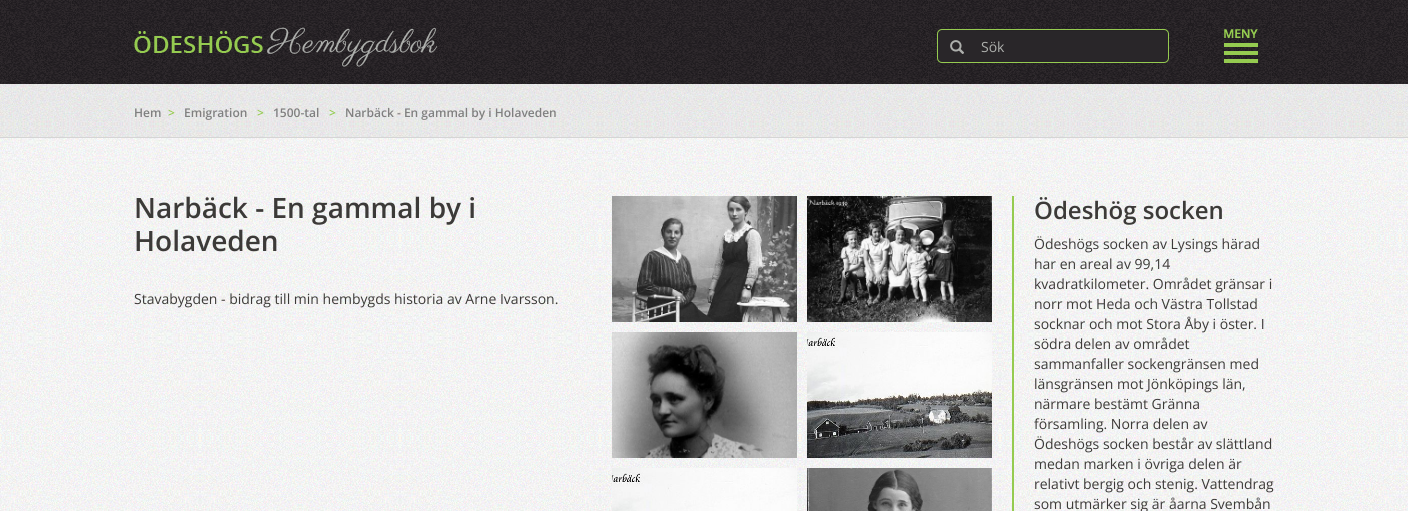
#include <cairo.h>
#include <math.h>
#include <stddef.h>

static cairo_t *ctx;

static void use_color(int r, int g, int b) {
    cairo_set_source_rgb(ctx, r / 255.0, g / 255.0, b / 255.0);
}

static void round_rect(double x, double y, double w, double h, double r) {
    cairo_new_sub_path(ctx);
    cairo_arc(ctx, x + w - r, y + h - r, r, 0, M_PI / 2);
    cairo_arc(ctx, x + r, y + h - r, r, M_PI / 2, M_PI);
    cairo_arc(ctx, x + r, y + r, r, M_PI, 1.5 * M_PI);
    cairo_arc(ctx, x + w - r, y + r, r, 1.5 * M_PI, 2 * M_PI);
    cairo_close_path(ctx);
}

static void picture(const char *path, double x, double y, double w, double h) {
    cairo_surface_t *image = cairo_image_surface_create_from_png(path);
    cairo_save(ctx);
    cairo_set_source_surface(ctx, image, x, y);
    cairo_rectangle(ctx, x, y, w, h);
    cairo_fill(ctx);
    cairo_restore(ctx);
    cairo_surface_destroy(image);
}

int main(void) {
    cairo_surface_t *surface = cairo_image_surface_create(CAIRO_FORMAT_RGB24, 1408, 511);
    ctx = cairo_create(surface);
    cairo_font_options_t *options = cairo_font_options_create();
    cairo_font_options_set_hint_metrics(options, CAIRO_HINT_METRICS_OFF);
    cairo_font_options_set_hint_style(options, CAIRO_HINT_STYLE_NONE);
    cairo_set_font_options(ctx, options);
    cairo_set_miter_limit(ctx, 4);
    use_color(255, 255, 255);
    cairo_paint(ctx);
    picture("img1.png", 0, 0, 1408, 84);
    picture("img2.png", 134, 27, 304, 40);
    use_color(41, 38, 41);
    round_rect(937.5, 29.5, 231, 33, 4.5);
    cairo_fill_preserve(ctx);
    use_color(149, 203, 80);
    cairo_set_line_width(ctx, 1);
    cairo_stroke(ctx);
    picture("img3.png", 950, 40, 14, 14);
    cairo_set_source_rgba(ctx, 0, 0, 0, 0.07);
    cairo_new_path(ctx);
    cairo_move_to(ctx, 976, 31);
    cairo_line_to(ctx, 1164, 31);
    cairo_curve_to(ctx, 1166, 31, 1168, 33, 1168, 35);
    cairo_curve_to(ctx, 1168, 32, 1167, 30, 1164, 30);
    cairo_line_to(ctx, 976, 30);
    cairo_close_path(ctx);
    cairo_fill(ctx);
    cairo_select_font_face(ctx, "Open Sans", CAIRO_FONT_SLANT_NORMAL, CAIRO_FONT_WEIGHT_NORMAL);
    cairo_set_font_size(ctx, 14);
    use_color(173, 175, 172);
    cairo_move_to(ctx, 981, 52);
    cairo_show_text(ctx, "Sök");
    picture("img4.png", 1224, 29, 34, 34);
    picture("img5.png", 0, 84, 1408, 53);
    use_color(213, 213, 213);
    cairo_rectangle(ctx, 0, 137, 1408, 1);
    cairo_fill(ctx);
    cairo_select_font_face(ctx, "Open Sans SemiBold", CAIRO_FONT_SLANT_NORMAL, CAIRO_FONT_WEIGHT_NORMAL);
    cairo_set_font_size(ctx, 12);
    use_color(128, 128, 128);
    cairo_move_to(ctx, 134, 117);
    cairo_show_text(ctx, "Hem");
    use_color(149, 203, 80);
    cairo_move_to(ctx, 168, 117);
    cairo_show_text(ctx, ">");
    use_color(128, 128, 128);
    cairo_move_to(ctx, 184, 117);
    cairo_show_text(ctx, "Emigration");
    use_color(149, 203, 80);
    cairo_move_to(ctx, 257, 117);
    cairo_show_text(ctx, ">");
    use_color(128, 128, 128);
    cairo_move_to(ctx, 273, 117);
    cairo_show_text(ctx, "1500-tal");
    use_color(149, 203, 80);
    cairo_move_to(ctx, 329, 117);
    cairo_show_text(ctx, ">");
    use_color(128, 128, 128);
    cairo_move_to(ctx, 345, 117);
    cairo_show_text(ctx, "Narbäck - En gammal by i Holaveden");
    picture("img6.png", 0, 138, 1408, 373);
    cairo_set_font_size(ctx, 28);
    use_color(60, 58, 56);
    cairo_move_to(ctx, 134, 218);
    cairo_show_text(ctx, "Narbäck - En gammal by i");
    cairo_move_to(ctx, 134, 251);
    cairo_show_text(ctx, "Holaveden");
    cairo_select_font_face(ctx, "Open Sans", CAIRO_FONT_SLANT_NORMAL, CAIRO_FONT_WEIGHT_NORMAL);
    cairo_set_font_size(ctx, 14);
    cairo_move_to(ctx, 134, 304);
    cairo_show_text(ctx, "Stavabygden - bidrag till min hembygds historia av Arne Ivarsson.");
    picture("img7.png", 612, 196, 185, 126);
    picture("img8.png", 807, 196, 185, 126);
    picture("img9.png", 612, 332, 185, 126);
    picture("img10.png", 807, 332, 185, 126);
    picture("img11.png", 612, 468, 185, 43);
    picture("img12.png", 807, 468, 185, 43);
    use_color(149, 203, 80);
    cairo_rectangle(ctx, 1012, 196, 2, 315);
    cairo_fill(ctx);
    cairo_select_font_face(ctx, "Open Sans SemiBold", CAIRO_FONT_SLANT_NORMAL, CAIRO_FONT_WEIGHT_NORMAL);
    cairo_set_font_size(ctx, 24);
    use_color(60, 58, 56);
    cairo_move_to(ctx, 1034, 219);
    cairo_show_text(ctx, "Ödeshög socken");
    cairo_select_font_face(ctx, "Open Sans", CAIRO_FONT_SLANT_NORMAL, CAIRO_FONT_WEIGHT_NORMAL);
    cairo_set_font_size(ctx, 14);
    cairo_move_to(ctx, 1034, 249);
    cairo_show_text(ctx, "Ödeshögs socken av Lysings härad");
    cairo_move_to(ctx, 1034, 269);
    cairo_show_text(ctx, "har en areal av 99,14");
    cairo_move_to(ctx, 1034, 289);
    cairo_show_text(ctx, "kvadratkilometer. Området gränsar i");
    cairo_move_to(ctx, 1034, 309);
    cairo_show_text(ctx, "norr mot Heda och Västra Tollstad");
    cairo_move_to(ctx, 1034, 329);
    cairo_show_text(ctx, "socknar och mot Stora Åby i öster. I");
    cairo_move_to(ctx, 1034, 349);
    cairo_show_text(ctx, "södra delen av området");
    cairo_move_to(ctx, 1034, 369);
    cairo_show_text(ctx, "sammanfaller sockengränsen med");
    cairo_move_to(ctx, 1034, 389);
    cairo_show_text(ctx, "länsgränsen mot Jönköpings län,");
    cairo_move_to(ctx, 1034, 409);
    cairo_show_text(ctx, "närmare bestämt Gränna");
    cairo_move_to(ctx, 1034, 429);
    cairo_show_text(ctx, "församling. Norra delen av");
    cairo_move_to(ctx, 1034, 449);
    cairo_show_text(ctx, "Ödeshögs socken består av slättland");
    cairo_move_to(ctx, 1034, 469);
    cairo_show_text(ctx, "medan marken i övriga delen är");
    cairo_move_to(ctx, 1034, 489);
    cairo_show_text(ctx, "relativt bergig och stenig. Vattendrag");
    cairo_move_to(ctx, 1034, 509);
    cairo_show_text(ctx, "som utmärker sig är åarna Svembån");
    cairo_surface_write_to_png(surface, "result.png");
    cairo_font_options_destroy(options);
    cairo_destroy(ctx);
    cairo_surface_destroy(surface);
    return 0;
}
